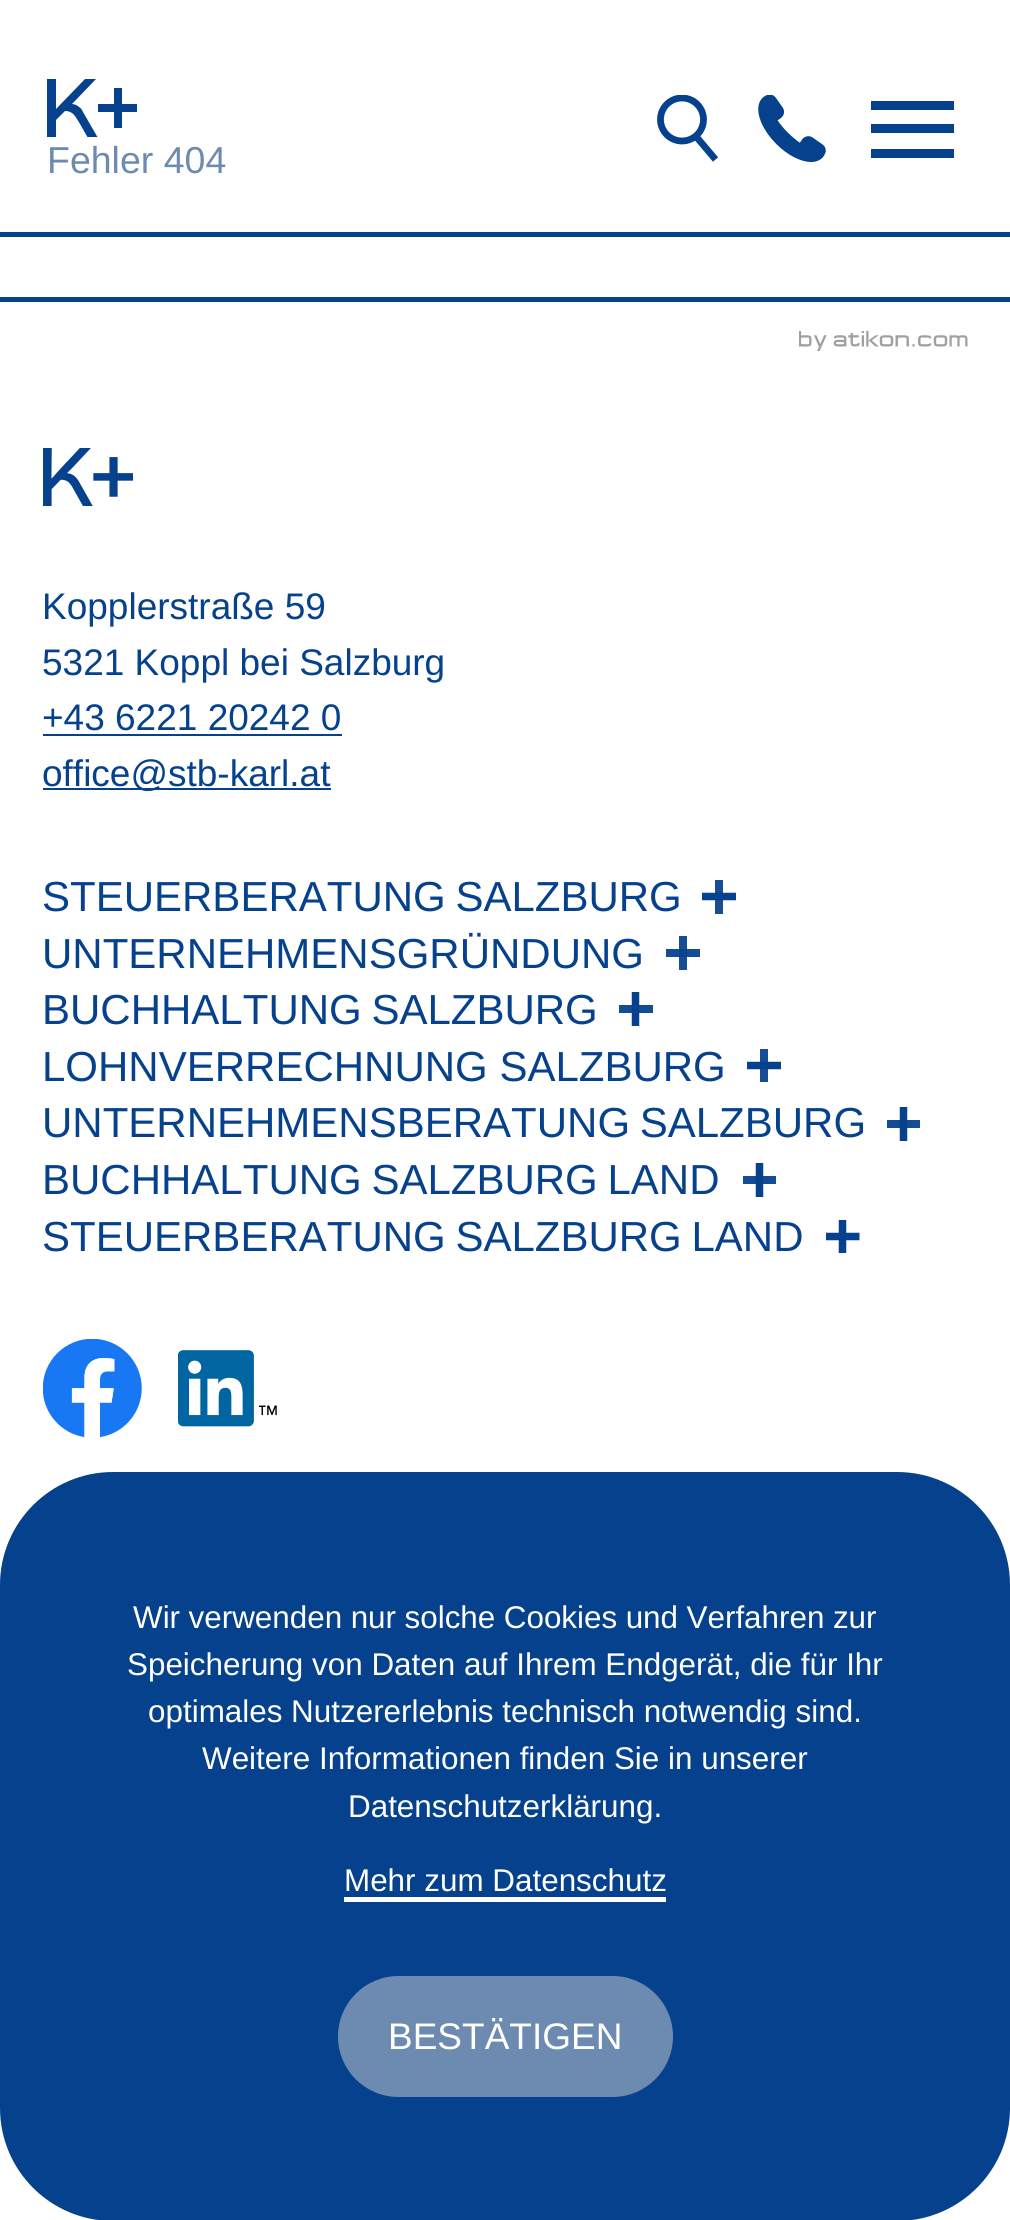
#include <cairo.h>
#include <math.h>
#include <stddef.h>

static cairo_t *ctx;

static void use_color(int r, int g, int b) {
    cairo_set_source_rgb(ctx, r / 255.0, g / 255.0, b / 255.0);
}

static void spaced_text(double x, double y, const char *s, double letter, double word) {
    cairo_move_to(ctx, x, y);
    while (*s) {
        char ch[5] = {0};
        int n = 0;
        do ch[n++] = *s++; while ((*s & 0xC0) == 0x80);
        cairo_show_text(ctx, ch);
        cairo_rel_move_to(ctx, letter + word * (*ch == ' '), 0);
    }
}

static void round_rect(double x, double y, double w, double h, double r) {
    cairo_new_sub_path(ctx);
    cairo_arc(ctx, x + w - r, y + h - r, r, 0, M_PI / 2);
    cairo_arc(ctx, x + r, y + h - r, r, M_PI / 2, M_PI);
    cairo_arc(ctx, x + r, y + r, r, M_PI, 1.5 * M_PI);
    cairo_arc(ctx, x + w - r, y + r, r, 1.5 * M_PI, 2 * M_PI);
    cairo_close_path(ctx);
}

static void picture(const char *path, double x, double y, double w, double h) {
    cairo_surface_t *image = cairo_image_surface_create_from_png(path);
    cairo_save(ctx);
    cairo_set_source_surface(ctx, image, x, y);
    cairo_rectangle(ctx, x, y, w, h);
    cairo_fill(ctx);
    cairo_restore(ctx);
    cairo_surface_destroy(image);
}

int main(void) {
    cairo_surface_t *surface = cairo_image_surface_create(CAIRO_FORMAT_RGB24, 1010, 2220);
    ctx = cairo_create(surface);
    cairo_font_options_t *options = cairo_font_options_create();
    cairo_font_options_set_hint_metrics(options, CAIRO_HINT_METRICS_OFF);
    cairo_font_options_set_hint_style(options, CAIRO_HINT_STYLE_NONE);
    cairo_set_font_options(ctx, options);
    cairo_set_miter_limit(ctx, 4);
    use_color(255, 255, 255);
    cairo_paint(ctx);
    use_color(21, 76, 148);
    cairo_rectangle(ctx, 666, 949, 34, 8);
    cairo_fill(ctx);
    cairo_save(ctx);
    cairo_rectangle(ctx, 47, 79, 90, 58);
    cairo_clip(ctx);
    use_color(6, 65, 141);
    cairo_new_path(ctx);
    cairo_move_to(ctx, 79, 107);
    cairo_curve_to(ctx, 77, 105, 74, 104, 72, 104);
    cairo_line_to(ctx, 96, 79);
    cairo_line_to(ctx, 85, 79);
    cairo_line_to(ctx, 56, 109);
    cairo_line_to(ctx, 56, 79);
    cairo_line_to(ctx, 47, 79);
    cairo_line_to(ctx, 47, 138);
    cairo_line_to(ctx, 56, 138);
    cairo_line_to(ctx, 56, 120);
    cairo_line_to(ctx, 65, 111);
    cairo_curve_to(ctx, 74, 111, 76, 118, 80, 124);
    cairo_line_to(ctx, 88, 138);
    cairo_line_to(ctx, 98, 138);
    cairo_line_to(ctx, 83, 112);
    cairo_curve_to(ctx, 82, 110, 81, 108, 79, 107);
    cairo_close_path(ctx);
    cairo_move_to(ctx, 138, 104);
    cairo_line_to(ctx, 122, 104);
    cairo_line_to(ctx, 122, 88);
    cairo_line_to(ctx, 114, 88);
    cairo_line_to(ctx, 114, 104);
    cairo_line_to(ctx, 98, 104);
    cairo_line_to(ctx, 98, 112);
    cairo_line_to(ctx, 114, 112);
    cairo_line_to(ctx, 114, 128);
    cairo_line_to(ctx, 122, 128);
    cairo_line_to(ctx, 122, 112);
    cairo_line_to(ctx, 138, 112);
    cairo_close_path(ctx);
    cairo_fill(ctx);
    cairo_restore(ctx);
    cairo_select_font_face(ctx, "Liberation Sans", CAIRO_FONT_SLANT_NORMAL, CAIRO_FONT_WEIGHT_NORMAL);
    cairo_set_font_size(ctx, 37.5);
    use_color(109, 139, 176);
    cairo_move_to(ctx, 47, 173);
    cairo_show_text(ctx, "Fehler 404");
    cairo_new_path(ctx);
    cairo_move_to(ctx, 696.5, 137);
    cairo_line_to(ctx, 715.5, 159.5);
    use_color(6, 65, 141);
    cairo_set_line_width(ctx, 6.8);
    cairo_stroke(ctx);
    cairo_save(ctx);
    cairo_rectangle(ctx, 655, 95, 67, 67);
    cairo_clip(ctx);
    cairo_arc(ctx, 682, 119.5, 21.5, 0, 2 * M_PI);
    cairo_stroke(ctx);
    cairo_restore(ctx);
    picture("img1.png", 758, 95, 68, 67);
    cairo_rectangle(ctx, 871, 101, 83, 9);
    cairo_fill(ctx);
    cairo_rectangle(ctx, 871, 124, 83, 9);
    cairo_fill(ctx);
    cairo_rectangle(ctx, 871, 149, 83, 9);
    cairo_fill(ctx);
    cairo_rectangle(ctx, 0, 232, 1010, 5);
    cairo_fill(ctx);
    cairo_rectangle(ctx, 0, 297, 1010, 5);
    cairo_fill(ctx);
    picture("img2.png", 799, 331, 169, 20);
    picture("img3.png", 43, 448, 90, 58);
    cairo_set_font_size(ctx, 37);
    cairo_move_to(ctx, 42, 619);
    cairo_show_text(ctx, "Kopplerstraße 59");
    cairo_move_to(ctx, 42, 675);
    cairo_show_text(ctx, "5321 Koppl bei Salzburg");
    cairo_move_to(ctx, 42, 730);
    cairo_show_text(ctx, "+43 6221 20242 0");
    cairo_rectangle(ctx, 43, 734, 299, 2);
    cairo_fill(ctx);
    cairo_rectangle(ctx, 43, 788, 288, 2);
    cairo_fill(ctx);
    cairo_move_to(ctx, 42, 786);
    cairo_show_text(ctx, "office@stb-karl.at");
    cairo_set_font_size(ctx, 42);
    spaced_text(42, 911, "STEUERBERATUNG SALZBURG", 0, -2);
    use_color(22, 77, 148);
    cairo_rectangle(ctx, 715, 880, 8, 34);
    cairo_fill(ctx);
    cairo_new_path(ctx);
    cairo_move_to(ctx, 736, 896.5);
    cairo_line_to(ctx, 702, 896.5);
    use_color(6, 65, 141);
    cairo_set_line_width(ctx, 7.5);
    cairo_stroke(ctx);
    cairo_move_to(ctx, 42, 968);
    cairo_show_text(ctx, "UNTERNEHMENSGRÜNDUNG");
    use_color(22, 77, 148);
    cairo_rectangle(ctx, 679, 936, 8, 34);
    cairo_fill(ctx);
    use_color(7, 66, 141);
    cairo_rectangle(ctx, 679, 949, 8, 8);
    cairo_fill(ctx);
    use_color(6, 65, 141);
    spaced_text(42, 1024, "BUCHHALTUNG SALZBURG", 0, -2);
    cairo_new_path(ctx);
    cairo_move_to(ctx, 635.5, 992);
    cairo_line_to(ctx, 635.5, 1026);
    cairo_stroke(ctx);
    cairo_set_source_rgba(ctx, 0.024, 0.255, 0.553, 0.94);
    cairo_rectangle(ctx, 619, 1005, 34, 8);
    cairo_fill(ctx);
    use_color(6, 65, 141);
    cairo_move_to(ctx, 42, 1081);
    cairo_show_text(ctx, "LOHNVERRECHNUNG SALZBURG");
    use_color(22, 77, 148);
    cairo_rectangle(ctx, 760, 1049, 8, 33);
    cairo_fill(ctx);
    cairo_new_path(ctx);
    cairo_move_to(ctx, 781, 1065.5);
    cairo_line_to(ctx, 747, 1065.5);
    use_color(6, 65, 141);
    cairo_stroke(ctx);
    spaced_text(42, 1137, "UNTERNEHMENSBERATUNG SALZBURG", 0, -2);
    cairo_new_path(ctx);
    cairo_move_to(ctx, 903.5, 1107);
    cairo_line_to(ctx, 903.5, 1141);
    cairo_stroke(ctx);
    cairo_set_source_rgba(ctx, 0.024, 0.255, 0.553, 0.94);
    cairo_rectangle(ctx, 887, 1120, 33, 8);
    cairo_fill(ctx);
    use_color(6, 65, 141);
    spaced_text(42, 1194, "BUCHHALTUNG SALZBURG LAND", 0, -2);
    cairo_new_path(ctx);
    cairo_move_to(ctx, 759.5, 1163);
    cairo_line_to(ctx, 759.5, 1197);
    cairo_stroke(ctx);
    cairo_set_source_rgba(ctx, 0.024, 0.255, 0.553, 0.94);
    cairo_rectangle(ctx, 743, 1176, 33, 8);
    cairo_fill(ctx);
    use_color(6, 65, 141);
    spaced_text(42, 1251, "STEUERBERATUNG SALZBURG LAND", 0, -2);
    cairo_save(ctx);
    cairo_rectangle(ctx, 826, 1220, 34, 33);
    cairo_clip(ctx);
    cairo_new_path(ctx);
    cairo_move_to(ctx, 842.5, 1219.5);
    cairo_line_to(ctx, 842.5, 1253);
    cairo_stroke(ctx);
    cairo_restore(ctx);
    cairo_new_path(ctx);
    cairo_move_to(ctx, 859.5, 1236.5);
    cairo_line_to(ctx, 826, 1236.5);
    cairo_stroke(ctx);
    picture("img4.png", 43, 1339, 99, 99);
    picture("img5.png", 178, 1350, 99, 77);
    round_rect(34, 1506, 942, 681, 79);
    cairo_fill_preserve(ctx);
    cairo_set_line_width(ctx, 68);
    cairo_stroke(ctx);
    cairo_set_font_size(ctx, 31.4);
    use_color(255, 255, 255);
    spaced_text(133, 1628, "Wir verwenden nur solche Cookies und Verfahren zur", 0, -0.25);
    cairo_move_to(ctx, 127, 1675);
    cairo_show_text(ctx, "Speicherung von Daten auf Ihrem Endgerät, die für Ihr");
    cairo_move_to(ctx, 148, 1722);
    cairo_show_text(ctx, "optimales Nutzererlebnis technisch notwendig sind.");
    cairo_move_to(ctx, 202, 1769);
    cairo_show_text(ctx, "Weitere Informationen finden Sie in unserer");
    cairo_move_to(ctx, 348, 1817);
    cairo_show_text(ctx, "Datenschutzerklärung.");
    cairo_move_to(ctx, 344, 1891);
    cairo_show_text(ctx, "Mehr zum Datenschutz");
    cairo_rectangle(ctx, 344, 1897, 322, 5);
    cairo_fill(ctx);
    use_color(109, 139, 176);
    round_rect(338, 1976, 335, 121, 60.5);
    cairo_fill(ctx);
    cairo_set_font_size(ctx, 37);
    use_color(255, 255, 255);
    cairo_move_to(ctx, 388, 2049);
    cairo_show_text(ctx, "BESTÄTIGEN");
    cairo_surface_write_to_png(surface, "result.png");
    cairo_font_options_destroy(options);
    cairo_destroy(ctx);
    cairo_surface_destroy(surface);
    return 0;
}
